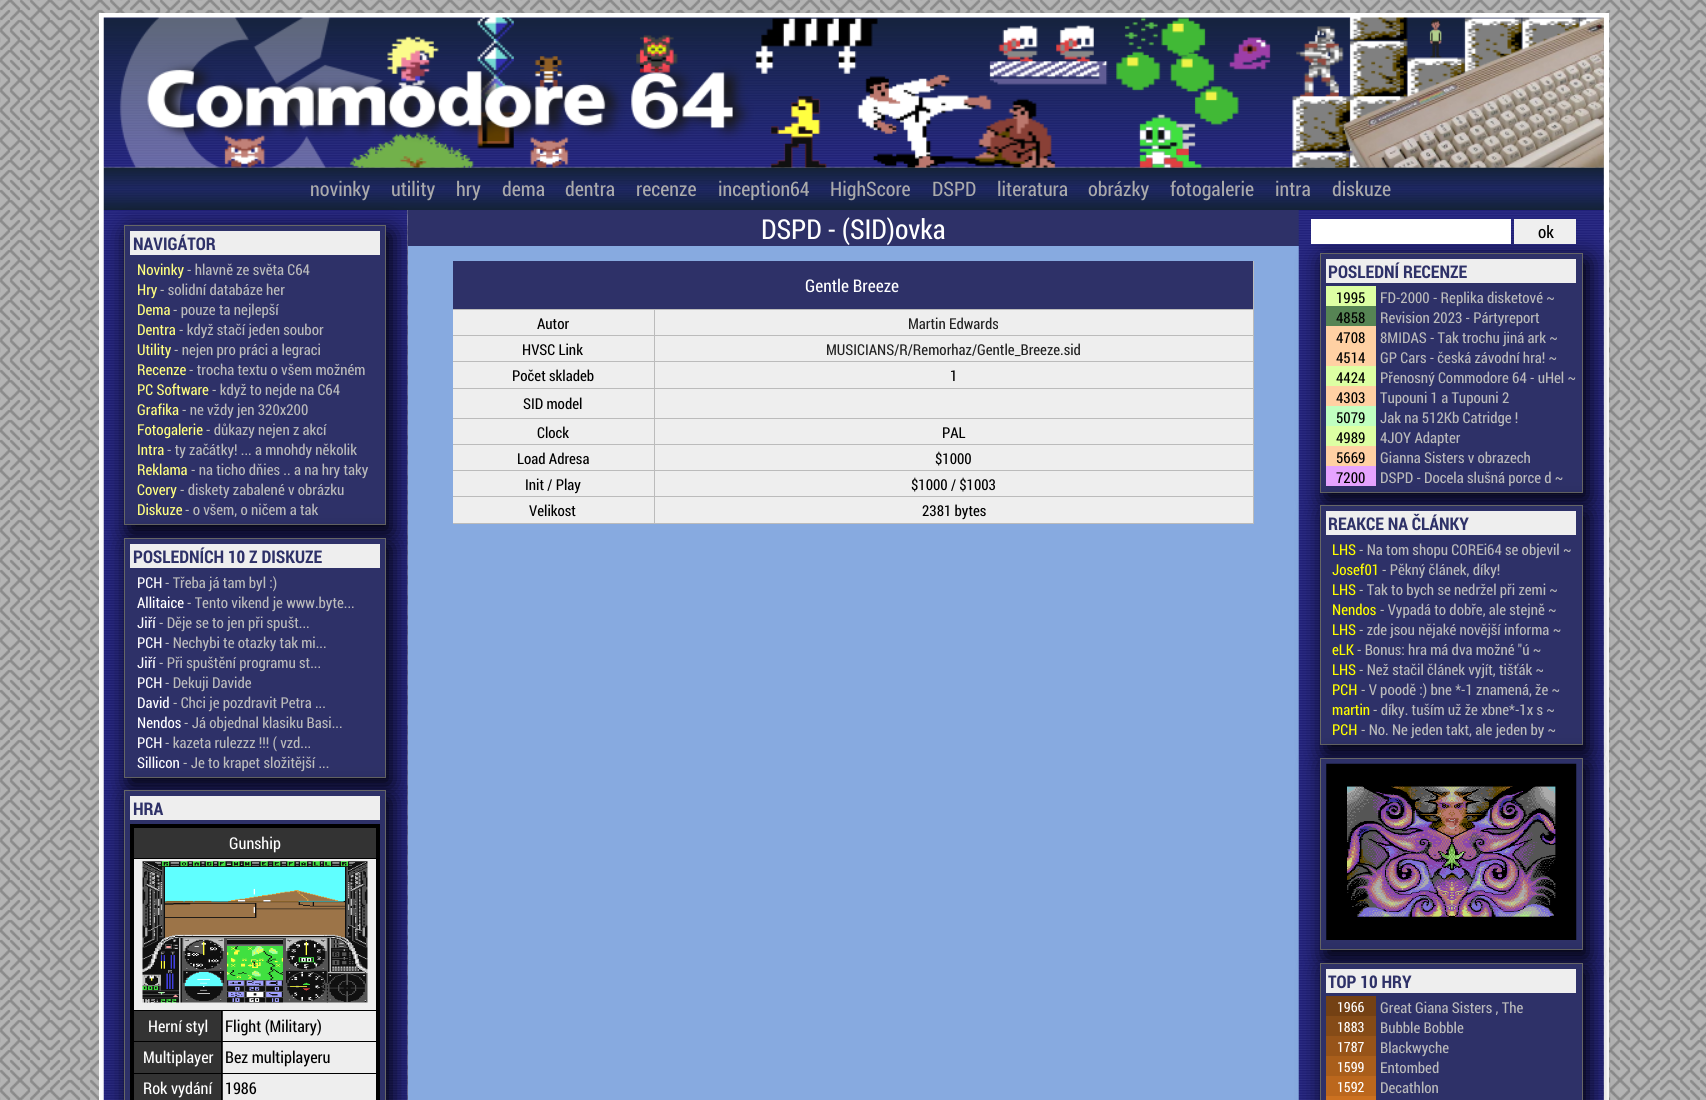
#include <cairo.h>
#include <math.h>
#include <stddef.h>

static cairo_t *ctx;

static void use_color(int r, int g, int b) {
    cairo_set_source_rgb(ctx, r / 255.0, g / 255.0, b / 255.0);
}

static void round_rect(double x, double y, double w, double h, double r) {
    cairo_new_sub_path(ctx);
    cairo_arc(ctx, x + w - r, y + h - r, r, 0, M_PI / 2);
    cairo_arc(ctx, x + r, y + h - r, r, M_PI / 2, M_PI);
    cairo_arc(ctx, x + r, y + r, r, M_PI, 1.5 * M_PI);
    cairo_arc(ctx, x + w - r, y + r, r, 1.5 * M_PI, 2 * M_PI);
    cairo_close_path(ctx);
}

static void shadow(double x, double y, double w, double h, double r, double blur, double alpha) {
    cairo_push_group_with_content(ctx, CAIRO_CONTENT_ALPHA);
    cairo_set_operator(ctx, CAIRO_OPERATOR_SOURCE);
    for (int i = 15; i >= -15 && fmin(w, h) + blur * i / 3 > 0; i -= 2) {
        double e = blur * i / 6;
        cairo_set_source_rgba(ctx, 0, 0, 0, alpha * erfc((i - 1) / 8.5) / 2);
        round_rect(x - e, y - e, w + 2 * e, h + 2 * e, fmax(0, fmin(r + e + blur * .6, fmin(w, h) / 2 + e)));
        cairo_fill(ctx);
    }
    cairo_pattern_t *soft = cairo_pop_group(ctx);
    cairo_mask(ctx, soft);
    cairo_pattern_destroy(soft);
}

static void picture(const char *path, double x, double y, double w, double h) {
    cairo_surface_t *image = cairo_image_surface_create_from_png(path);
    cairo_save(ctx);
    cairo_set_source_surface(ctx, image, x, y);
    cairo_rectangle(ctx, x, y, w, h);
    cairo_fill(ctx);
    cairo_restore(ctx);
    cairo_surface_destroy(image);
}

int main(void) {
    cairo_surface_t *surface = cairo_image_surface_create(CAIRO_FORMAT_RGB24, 1706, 1100);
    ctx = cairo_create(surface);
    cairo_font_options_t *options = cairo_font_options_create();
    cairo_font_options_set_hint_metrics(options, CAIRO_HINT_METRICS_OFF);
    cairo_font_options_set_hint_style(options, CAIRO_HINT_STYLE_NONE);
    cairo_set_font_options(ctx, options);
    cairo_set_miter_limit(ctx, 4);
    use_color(255, 255, 255);
    cairo_paint(ctx);
    picture("img1.png", 0, 0, 1706, 1100);
    cairo_rectangle(ctx, 101.5, 15.5, 1505, 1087);
    use_color(255, 255, 255);
    cairo_set_line_width(ctx, 5);
    cairo_stroke(ctx);
    picture("img3.png", 103, 167, 1501, 43);
    picture("img2.png", 103, 17, 1501, 151);
    picture("img4.png", 103, 210, 305, 890);
    use_color(0, 0, 0);
    shadow(129, 233, 262, 300, 0, 12.5, 1);
    cairo_select_font_face(ctx, "Roboto Condensed", CAIRO_FONT_SLANT_NORMAL, CAIRO_FONT_WEIGHT_NORMAL);
    cairo_set_font_size(ctx, 20);
    use_color(170, 170, 170);
    cairo_move_to(ctx, 310, 196);
    cairo_show_text(ctx, "novinky");
    cairo_move_to(ctx, 391, 196);
    cairo_show_text(ctx, "utility");
    cairo_move_to(ctx, 456, 196);
    cairo_show_text(ctx, "hry");
    cairo_move_to(ctx, 502, 196);
    cairo_show_text(ctx, "dema");
    cairo_move_to(ctx, 565, 196);
    cairo_show_text(ctx, "dentra");
    cairo_move_to(ctx, 636, 196);
    cairo_show_text(ctx, "recenze");
    cairo_move_to(ctx, 718, 196);
    cairo_show_text(ctx, "inception64");
    cairo_move_to(ctx, 830, 196);
    cairo_show_text(ctx, "HighScore");
    cairo_move_to(ctx, 932, 196);
    cairo_show_text(ctx, "DSPD");
    cairo_move_to(ctx, 997, 196);
    cairo_show_text(ctx, "literatura");
    cairo_move_to(ctx, 1088, 196);
    cairo_show_text(ctx, "obrázky");
    cairo_move_to(ctx, 1170, 196);
    cairo_show_text(ctx, "fotogalerie");
    cairo_move_to(ctx, 1275, 196);
    cairo_show_text(ctx, "intra");
    cairo_move_to(ctx, 1332, 196);
    cairo_show_text(ctx, "diskuze");
    use_color(46, 49, 104);
    cairo_rectangle(ctx, 124.5, 225.5, 261, 299);
    cairo_fill_preserve(ctx);
    use_color(102, 102, 102);
    cairo_set_line_width(ctx, 1);
    cairo_stroke(ctx);
    use_color(238, 238, 238);
    cairo_rectangle(ctx, 130, 231, 250, 24);
    cairo_fill(ctx);
    cairo_select_font_face(ctx, "Roboto Condensed", CAIRO_FONT_SLANT_NORMAL, CAIRO_FONT_WEIGHT_BOLD);
    cairo_set_font_size(ctx, 17.5);
    use_color(46, 49, 104);
    cairo_move_to(ctx, 133, 250);
    cairo_show_text(ctx, "NAVIGÁTOR");
    cairo_select_font_face(ctx, "Roboto Condensed", CAIRO_FONT_SLANT_NORMAL, CAIRO_FONT_WEIGHT_NORMAL);
    cairo_set_font_size(ctx, 15);
    use_color(255, 255, 128);
    cairo_move_to(ctx, 137, 275);
    cairo_show_text(ctx, "Novinky");
    use_color(187, 187, 187);
    cairo_move_to(ctx, 187, 275);
    cairo_show_text(ctx, "- hlavně ze světa C64");
    use_color(255, 255, 128);
    cairo_move_to(ctx, 137, 295);
    cairo_show_text(ctx, "Hry");
    use_color(187, 187, 187);
    cairo_move_to(ctx, 160, 295);
    cairo_show_text(ctx, "- solidní databáze her");
    use_color(255, 255, 128);
    cairo_move_to(ctx, 137, 315);
    cairo_show_text(ctx, "Dema");
    use_color(187, 187, 187);
    cairo_move_to(ctx, 173, 315);
    cairo_show_text(ctx, "- pouze ta nejlepší");
    use_color(255, 255, 128);
    cairo_move_to(ctx, 137, 335);
    cairo_show_text(ctx, "Dentra");
    use_color(187, 187, 187);
    cairo_move_to(ctx, 179, 335);
    cairo_show_text(ctx, "- když stačí jeden soubor");
    use_color(255, 255, 128);
    cairo_move_to(ctx, 137, 355);
    cairo_show_text(ctx, "Utility");
    use_color(187, 187, 187);
    cairo_move_to(ctx, 174, 355);
    cairo_show_text(ctx, "- nejen pro práci a legraci");
    use_color(255, 255, 128);
    cairo_move_to(ctx, 137, 375);
    cairo_show_text(ctx, "Recenze");
    use_color(187, 187, 187);
    cairo_move_to(ctx, 189, 375);
    cairo_show_text(ctx, "- trocha textu o všem možném");
    use_color(255, 255, 128);
    cairo_move_to(ctx, 137, 395);
    cairo_show_text(ctx, "PC Software");
    use_color(187, 187, 187);
    cairo_move_to(ctx, 212, 395);
    cairo_show_text(ctx, "- když to nejde na C64");
    use_color(255, 255, 128);
    cairo_move_to(ctx, 137, 415);
    cairo_show_text(ctx, "Grafika");
    use_color(187, 187, 187);
    cairo_move_to(ctx, 182, 415);
    cairo_show_text(ctx, "- ne vždy jen 320x200");
    use_color(255, 255, 128);
    cairo_move_to(ctx, 137, 435);
    cairo_show_text(ctx, "Fotogalerie");
    use_color(187, 187, 187);
    cairo_move_to(ctx, 206, 435);
    cairo_show_text(ctx, "- důkazy nejen z akcí");
    use_color(255, 255, 128);
    cairo_move_to(ctx, 137, 455);
    cairo_show_text(ctx, "Intra");
    use_color(187, 187, 187);
    cairo_move_to(ctx, 167, 455);
    cairo_show_text(ctx, "- ty začátky! ... a mnohdy několik");
    use_color(255, 255, 128);
    cairo_move_to(ctx, 137, 475);
    cairo_show_text(ctx, "Reklama");
    use_color(187, 187, 187);
    cairo_move_to(ctx, 191, 475);
    cairo_show_text(ctx, "- na ticho dňies .. a na hry taky");
    use_color(255, 255, 128);
    cairo_move_to(ctx, 137, 495);
    cairo_show_text(ctx, "Covery");
    use_color(187, 187, 187);
    cairo_move_to(ctx, 180, 495);
    cairo_show_text(ctx, "- diskety zabalené v obrázku");
    use_color(0, 0, 0);
    shadow(129, 545, 262, 240, 0, 12.5, 1);
    use_color(255, 255, 128);
    cairo_move_to(ctx, 137, 515);
    cairo_show_text(ctx, "Diskuze");
    use_color(187, 187, 187);
    cairo_move_to(ctx, 185, 515);
    cairo_show_text(ctx, "- o všem, o ničem a tak");
    use_color(46, 49, 104);
    cairo_rectangle(ctx, 124.5, 538.5, 261, 239);
    cairo_fill_preserve(ctx);
    use_color(102, 102, 102);
    cairo_stroke(ctx);
    use_color(238, 238, 238);
    cairo_rectangle(ctx, 130, 544, 250, 24);
    cairo_fill(ctx);
    cairo_select_font_face(ctx, "Roboto Condensed", CAIRO_FONT_SLANT_NORMAL, CAIRO_FONT_WEIGHT_BOLD);
    cairo_set_font_size(ctx, 17.5);
    use_color(46, 49, 104);
    cairo_move_to(ctx, 133, 563);
    cairo_show_text(ctx, "POSLEDNÍCH 10 Z DISKUZE");
    cairo_select_font_face(ctx, "Roboto Condensed", CAIRO_FONT_SLANT_NORMAL, CAIRO_FONT_WEIGHT_NORMAL);
    cairo_set_font_size(ctx, 15);
    use_color(255, 255, 255);
    cairo_move_to(ctx, 137, 588);
    cairo_show_text(ctx, "PCH");
    use_color(187, 187, 187);
    cairo_move_to(ctx, 165, 588);
    cairo_show_text(ctx, "- Třeba já tam byl :)");
    use_color(255, 255, 255);
    cairo_move_to(ctx, 137, 608);
    cairo_show_text(ctx, "Allitaice");
    use_color(187, 187, 187);
    cairo_move_to(ctx, 187, 608);
    cairo_show_text(ctx, "- Tento vikend je www.byte...");
    use_color(255, 255, 255);
    cairo_move_to(ctx, 137, 628);
    cairo_show_text(ctx, "Jiří");
    use_color(187, 187, 187);
    cairo_move_to(ctx, 159, 628);
    cairo_show_text(ctx, "- Děje se to jen při spušt...");
    use_color(255, 255, 255);
    cairo_move_to(ctx, 137, 648);
    cairo_show_text(ctx, "PCH");
    use_color(187, 187, 187);
    cairo_move_to(ctx, 165, 648);
    cairo_show_text(ctx, "- Nechybi te otazky tak mi...");
    use_color(255, 255, 255);
    cairo_move_to(ctx, 137, 668);
    cairo_show_text(ctx, "Jiří");
    use_color(187, 187, 187);
    cairo_move_to(ctx, 159, 668);
    cairo_show_text(ctx, "- Při spuštění programu st...");
    use_color(255, 255, 255);
    cairo_move_to(ctx, 137, 688);
    cairo_show_text(ctx, "PCH");
    use_color(187, 187, 187);
    cairo_move_to(ctx, 165, 688);
    cairo_show_text(ctx, "- Dekuji Davide");
    use_color(255, 255, 255);
    cairo_move_to(ctx, 137, 708);
    cairo_show_text(ctx, "David");
    use_color(187, 187, 187);
    cairo_move_to(ctx, 173, 708);
    cairo_show_text(ctx, "- Chci je pozdravit Petra ...");
    use_color(255, 255, 255);
    cairo_move_to(ctx, 137, 728);
    cairo_show_text(ctx, "Nendos");
    use_color(187, 187, 187);
    cairo_move_to(ctx, 184, 728);
    cairo_show_text(ctx, "- Já objednal klasiku Basi...");
    use_color(255, 255, 255);
    cairo_move_to(ctx, 137, 748);
    cairo_show_text(ctx, "PCH");
    use_color(187, 187, 187);
    cairo_move_to(ctx, 165, 748);
    cairo_show_text(ctx, "- kazeta rulezzz !!! ( vzd...");
    use_color(0, 0, 0);
    shadow(129, 798, 262, 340, 0, 12.5, 1);
    use_color(255, 255, 255);
    cairo_move_to(ctx, 137, 768);
    cairo_show_text(ctx, "Sillicon");
    use_color(187, 187, 187);
    cairo_move_to(ctx, 183, 768);
    cairo_show_text(ctx, "- Je to krapet složitější ...");
    use_color(46, 49, 104);
    cairo_rectangle(ctx, 124.5, 790.5, 261, 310);
    cairo_fill_preserve(ctx);
    use_color(102, 102, 102);
    cairo_stroke(ctx);
    use_color(238, 238, 238);
    cairo_rectangle(ctx, 130, 796, 250, 24);
    cairo_fill(ctx);
    cairo_select_font_face(ctx, "Roboto Condensed", CAIRO_FONT_SLANT_NORMAL, CAIRO_FONT_WEIGHT_BOLD);
    cairo_set_font_size(ctx, 17.5);
    use_color(46, 49, 104);
    cairo_move_to(ctx, 133, 815);
    cairo_show_text(ctx, "HRA");
    use_color(238, 238, 238);
    cairo_rectangle(ctx, 134, 859, 242, 241);
    cairo_fill(ctx);
    use_color(0, 0, 0);
    cairo_rectangle(ctx, 130, 824, 250, 4);
    cairo_fill(ctx);
    cairo_rectangle(ctx, 131, 858, 248, 1);
    cairo_fill(ctx);
    cairo_rectangle(ctx, 221, 1010, 158, 1);
    cairo_fill(ctx);
    cairo_rectangle(ctx, 221, 1041, 158, 1);
    cairo_fill(ctx);
    cairo_rectangle(ctx, 221, 1073, 158, 1);
    cairo_fill(ctx);
    cairo_rectangle(ctx, 376, 824, 4, 276);
    cairo_fill(ctx);
    use_color(51, 51, 51);
    cairo_rectangle(ctx, 134, 1011, 89, 30);
    cairo_fill(ctx);
    cairo_rectangle(ctx, 134, 1042, 89, 31);
    cairo_fill(ctx);
    cairo_rectangle(ctx, 134, 1074, 89, 26);
    cairo_fill(ctx);
    use_color(0, 0, 0);
    cairo_rectangle(ctx, 221, 1073, 1, 27);
    cairo_fill(ctx);
    cairo_rectangle(ctx, 131, 1073, 92, 1);
    cairo_fill(ctx);
    cairo_rectangle(ctx, 221, 1041, 1, 33);
    cairo_fill(ctx);
    cairo_rectangle(ctx, 131, 1041, 92, 1);
    cairo_fill(ctx);
    cairo_rectangle(ctx, 221, 1010, 1, 33);
    cairo_fill(ctx);
    cairo_rectangle(ctx, 131, 1010, 92, 1);
    cairo_fill(ctx);
    cairo_rectangle(ctx, 130, 824, 4, 276);
    cairo_fill(ctx);
    use_color(51, 51, 51);
    cairo_rectangle(ctx, 134, 828, 242, 30);
    cairo_fill(ctx);
    cairo_select_font_face(ctx, "Roboto Condensed", CAIRO_FONT_SLANT_NORMAL, CAIRO_FONT_WEIGHT_NORMAL);
    cairo_set_font_size(ctx, 16.25);
    use_color(255, 255, 255);
    cairo_move_to(ctx, 229, 849);
    cairo_show_text(ctx, "Gunship");
    picture("img5.png", 142, 861, 226, 142);
    cairo_move_to(ctx, 148, 1032);
    cairo_show_text(ctx, "Herní styl");
    use_color(0, 0, 0);
    cairo_move_to(ctx, 225, 1032);
    cairo_show_text(ctx, "Flight (Military)");
    use_color(255, 255, 255);
    cairo_move_to(ctx, 143, 1063);
    cairo_show_text(ctx, "Multiplayer");
    use_color(0, 0, 0);
    cairo_move_to(ctx, 225, 1063);
    cairo_show_text(ctx, "Bez multiplayeru");
    use_color(255, 255, 255);
    cairo_move_to(ctx, 143, 1094);
    cairo_show_text(ctx, "Rok vydání");
    use_color(0, 0, 0);
    cairo_move_to(ctx, 225, 1094);
    cairo_show_text(ctx, "1986");
    use_color(135, 170, 224);
    cairo_rectangle(ctx, 408, 246, 891, 854);
    cairo_fill(ctx);
    use_color(46, 49, 104);
    cairo_rectangle(ctx, 408, 210, 891, 36);
    cairo_fill(ctx);
    cairo_set_font_size(ctx, 27.5);
    use_color(255, 255, 255);
    cairo_move_to(ctx, 761, 239);
    cairo_show_text(ctx, "DSPD - (SID)ovka");
    use_color(46, 49, 104);
    cairo_rectangle(ctx, 453, 261, 800, 48);
    cairo_fill(ctx);
    use_color(187, 187, 187);
    cairo_rectangle(ctx, 1253, 261, 1, 263);
    cairo_fill(ctx);
    cairo_rectangle(ctx, 453, 309, 801, 1);
    cairo_fill(ctx);
    cairo_set_font_size(ctx, 17.5);
    use_color(255, 255, 255);
    cairo_move_to(ctx, 805, 292);
    cairo_show_text(ctx, "Gentle Breeze");
    use_color(238, 238, 238);
    cairo_rectangle(ctx, 453, 310, 201, 25);
    cairo_fill(ctx);
    use_color(187, 187, 187);
    cairo_rectangle(ctx, 654, 310, 1, 214);
    cairo_fill(ctx);
    cairo_rectangle(ctx, 453, 335, 801, 1);
    cairo_fill(ctx);
    cairo_set_font_size(ctx, 15);
    use_color(0, 0, 0);
    cairo_move_to(ctx, 537, 329);
    cairo_show_text(ctx, "Autor");
    use_color(238, 238, 238);
    cairo_rectangle(ctx, 655, 310, 598, 25);
    cairo_fill(ctx);
    use_color(34, 34, 34);
    cairo_move_to(ctx, 908, 329);
    cairo_show_text(ctx, "Martin Edwards");
    use_color(238, 238, 238);
    cairo_rectangle(ctx, 453, 336, 201, 52);
    cairo_fill(ctx);
    use_color(187, 187, 187);
    cairo_rectangle(ctx, 453, 361, 202, 1);
    cairo_fill(ctx);
    use_color(0, 0, 0);
    cairo_move_to(ctx, 522, 355);
    cairo_show_text(ctx, "HVSC Link");
    use_color(238, 238, 238);
    cairo_rectangle(ctx, 655, 336, 598, 52);
    cairo_fill(ctx);
    use_color(187, 187, 187);
    cairo_rectangle(ctx, 655, 361, 599, 1);
    cairo_fill(ctx);
    use_color(34, 34, 34);
    cairo_move_to(ctx, 826, 355);
    cairo_show_text(ctx, "MUSICIANS/R/Remorhaz/Gentle_Breeze.sid");
    use_color(187, 187, 187);
    cairo_rectangle(ctx, 453, 388, 801, 1);
    cairo_fill(ctx);
    use_color(0, 0, 0);
    cairo_move_to(ctx, 512, 381);
    cairo_show_text(ctx, "Počet skladeb");
    cairo_move_to(ctx, 950, 381);
    cairo_show_text(ctx, "1");
    use_color(238, 238, 238);
    cairo_rectangle(ctx, 453, 389, 201, 29);
    cairo_fill(ctx);
    use_color(187, 187, 187);
    cairo_rectangle(ctx, 453, 418, 801, 1);
    cairo_fill(ctx);
    use_color(0, 0, 0);
    cairo_move_to(ctx, 523, 409);
    cairo_show_text(ctx, "SID model");
    use_color(238, 238, 238);
    cairo_rectangle(ctx, 655, 389, 598, 29);
    cairo_fill(ctx);
    cairo_rectangle(ctx, 453, 419, 201, 25);
    cairo_fill(ctx);
    use_color(187, 187, 187);
    cairo_rectangle(ctx, 453, 444, 801, 1);
    cairo_fill(ctx);
    use_color(0, 0, 0);
    cairo_move_to(ctx, 537, 438);
    cairo_show_text(ctx, "Clock");
    use_color(238, 238, 238);
    cairo_rectangle(ctx, 655, 419, 598, 25);
    cairo_fill(ctx);
    use_color(0, 0, 0);
    cairo_move_to(ctx, 942, 438);
    cairo_show_text(ctx, "PAL");
    use_color(238, 238, 238);
    cairo_rectangle(ctx, 453, 445, 201, 25);
    cairo_fill(ctx);
    use_color(187, 187, 187);
    cairo_rectangle(ctx, 453, 470, 801, 1);
    cairo_fill(ctx);
    use_color(0, 0, 0);
    cairo_move_to(ctx, 517, 464);
    cairo_show_text(ctx, "Load Adresa");
    use_color(238, 238, 238);
    cairo_rectangle(ctx, 655, 445, 598, 25);
    cairo_fill(ctx);
    use_color(0, 0, 0);
    cairo_move_to(ctx, 935, 464);
    cairo_show_text(ctx, "$1000");
    use_color(238, 238, 238);
    cairo_rectangle(ctx, 453, 471, 201, 52);
    cairo_fill(ctx);
    use_color(187, 187, 187);
    cairo_rectangle(ctx, 453, 496, 202, 1);
    cairo_fill(ctx);
    use_color(0, 0, 0);
    cairo_move_to(ctx, 525, 490);
    cairo_show_text(ctx, "Init / Play");
    use_color(238, 238, 238);
    cairo_rectangle(ctx, 655, 471, 598, 52);
    cairo_fill(ctx);
    use_color(187, 187, 187);
    cairo_rectangle(ctx, 655, 496, 599, 1);
    cairo_fill(ctx);
    use_color(0, 0, 0);
    cairo_move_to(ctx, 911, 490);
    cairo_show_text(ctx, "$1000 / $1003");
    use_color(187, 187, 187);
    cairo_rectangle(ctx, 453, 523, 801, 1);
    cairo_fill(ctx);
    use_color(0, 0, 0);
    cairo_move_to(ctx, 529, 516);
    cairo_show_text(ctx, "Velikost");
    cairo_move_to(ctx, 922, 516);
    cairo_show_text(ctx, "2381 bytes");
    picture("img6.png", 1298, 210, 306, 890);
    use_color(0, 0, 0);
    shadow(1325, 260, 263, 240, 0, 12.5, 1);
    use_color(255, 255, 255);
    cairo_rectangle(ctx, 1311, 219, 200, 25);
    cairo_fill(ctx);
    use_color(239, 239, 239);
    cairo_rectangle(ctx, 1514, 219, 62, 25);
    cairo_fill(ctx);
    cairo_set_font_size(ctx, 17);
    use_color(0, 0, 0);
    cairo_move_to(ctx, 1538, 238);
    cairo_show_text(ctx, "ok");
    use_color(46, 49, 104);
    cairo_rectangle(ctx, 1320.5, 253.5, 262, 239);
    cairo_fill_preserve(ctx);
    use_color(102, 102, 102);
    cairo_stroke(ctx);
    use_color(238, 238, 238);
    cairo_rectangle(ctx, 1326, 259, 250, 24);
    cairo_fill(ctx);
    cairo_select_font_face(ctx, "Roboto Condensed", CAIRO_FONT_SLANT_NORMAL, CAIRO_FONT_WEIGHT_BOLD);
    cairo_set_font_size(ctx, 17.5);
    use_color(46, 49, 104);
    cairo_move_to(ctx, 1328, 278);
    cairo_show_text(ctx, "POSLEDNÍ RECENZE");
    use_color(221, 255, 163);
    cairo_rectangle(ctx, 1326, 286, 50, 20);
    cairo_fill(ctx);
    cairo_select_font_face(ctx, "Roboto Condensed", CAIRO_FONT_SLANT_NORMAL, CAIRO_FONT_WEIGHT_NORMAL);
    cairo_set_font_size(ctx, 15);
    use_color(0, 0, 0);
    cairo_move_to(ctx, 1336, 303);
    cairo_show_text(ctx, "1995");
    use_color(187, 187, 187);
    cairo_move_to(ctx, 1380, 303);
    cairo_show_text(ctx, "FD-2000 - Replika disketové ~");
    use_color(86, 132, 84);
    cairo_rectangle(ctx, 1326, 306, 50, 20);
    cairo_fill(ctx);
    use_color(0, 0, 0);
    cairo_move_to(ctx, 1336, 323);
    cairo_show_text(ctx, "4858");
    use_color(187, 187, 187);
    cairo_move_to(ctx, 1380, 323);
    cairo_show_text(ctx, "Revision 2023 - Pártyreport");
    use_color(255, 208, 163);
    cairo_rectangle(ctx, 1326, 326, 50, 40);
    cairo_fill(ctx);
    use_color(0, 0, 0);
    cairo_move_to(ctx, 1336, 343);
    cairo_show_text(ctx, "4708");
    use_color(187, 187, 187);
    cairo_move_to(ctx, 1380, 343);
    cairo_show_text(ctx, "8MIDAS - Tak trochu jiná ark ~");
    use_color(0, 0, 0);
    cairo_move_to(ctx, 1336, 363);
    cairo_show_text(ctx, "4514");
    use_color(187, 187, 187);
    cairo_move_to(ctx, 1380, 363);
    cairo_show_text(ctx, "GP Cars - česká závodní hra! ~");
    use_color(221, 255, 163);
    cairo_rectangle(ctx, 1326, 366, 50, 20);
    cairo_fill(ctx);
    use_color(0, 0, 0);
    cairo_move_to(ctx, 1336, 383);
    cairo_show_text(ctx, "4424");
    use_color(187, 187, 187);
    cairo_move_to(ctx, 1380, 383);
    cairo_show_text(ctx, "Přenosný Commodore 64 - uHel ~");
    use_color(255, 208, 163);
    cairo_rectangle(ctx, 1326, 386, 50, 20);
    cairo_fill(ctx);
    use_color(0, 0, 0);
    cairo_move_to(ctx, 1336, 403);
    cairo_show_text(ctx, "4303");
    use_color(187, 187, 187);
    cairo_move_to(ctx, 1380, 403);
    cairo_show_text(ctx, "Tupouni 1 a Tupouni 2");
    use_color(192, 255, 192);
    cairo_rectangle(ctx, 1326, 406, 50, 20);
    cairo_fill(ctx);
    use_color(0, 0, 0);
    cairo_move_to(ctx, 1336, 423);
    cairo_show_text(ctx, "5079");
    use_color(187, 187, 187);
    cairo_move_to(ctx, 1380, 423);
    cairo_show_text(ctx, "Jak na 512Kb Catridge !");
    use_color(221, 255, 163);
    cairo_rectangle(ctx, 1326, 426, 50, 20);
    cairo_fill(ctx);
    use_color(0, 0, 0);
    cairo_move_to(ctx, 1336, 443);
    cairo_show_text(ctx, "4989");
    use_color(187, 187, 187);
    cairo_move_to(ctx, 1380, 443);
    cairo_show_text(ctx, "4JOY Adapter");
    use_color(255, 208, 163);
    cairo_rectangle(ctx, 1326, 446, 50, 20);
    cairo_fill(ctx);
    use_color(0, 0, 0);
    cairo_move_to(ctx, 1336, 463);
    cairo_show_text(ctx, "5669");
    use_color(187, 187, 187);
    cairo_move_to(ctx, 1380, 463);
    cairo_show_text(ctx, "Gianna Sisters v obrazech");
    use_color(230, 163, 255);
    cairo_rectangle(ctx, 1326, 466, 50, 20);
    cairo_fill(ctx);
    use_color(0, 0, 0);
    shadow(1325, 513, 263, 240, 0, 12.5, 1);
    use_color(0, 0, 0);
    cairo_move_to(ctx, 1336, 483);
    cairo_show_text(ctx, "7200");
    use_color(187, 187, 187);
    cairo_move_to(ctx, 1380, 483);
    cairo_show_text(ctx, "DSPD - Docela slušná porce d ~");
    use_color(46, 49, 104);
    cairo_rectangle(ctx, 1320.5, 505.5, 262, 239);
    cairo_fill_preserve(ctx);
    use_color(102, 102, 102);
    cairo_stroke(ctx);
    use_color(238, 238, 238);
    cairo_rectangle(ctx, 1326, 511, 250, 24);
    cairo_fill(ctx);
    cairo_select_font_face(ctx, "Roboto Condensed", CAIRO_FONT_SLANT_NORMAL, CAIRO_FONT_WEIGHT_BOLD);
    cairo_set_font_size(ctx, 17.5);
    use_color(46, 49, 104);
    cairo_move_to(ctx, 1328, 530);
    cairo_show_text(ctx, "REAKCE NA ČLÁNKY");
    cairo_select_font_face(ctx, "Roboto Condensed", CAIRO_FONT_SLANT_NORMAL, CAIRO_FONT_WEIGHT_NORMAL);
    cairo_set_font_size(ctx, 15);
    use_color(255, 255, 0);
    cairo_move_to(ctx, 1332, 555);
    cairo_show_text(ctx, "LHS");
    use_color(187, 187, 187);
    cairo_move_to(ctx, 1359, 555);
    cairo_show_text(ctx, "- Na tom shopu COREi64 se objevil ~");
    use_color(255, 255, 0);
    cairo_move_to(ctx, 1332, 575);
    cairo_show_text(ctx, "Josef01");
    use_color(187, 187, 187);
    cairo_move_to(ctx, 1382, 575);
    cairo_show_text(ctx, "- Pěkný článek, díky!");
    use_color(255, 255, 0);
    cairo_move_to(ctx, 1332, 595);
    cairo_show_text(ctx, "LHS");
    use_color(187, 187, 187);
    cairo_move_to(ctx, 1359, 595);
    cairo_show_text(ctx, "- Tak to bych se nedržel při zemi ~");
    use_color(255, 255, 0);
    cairo_move_to(ctx, 1332, 615);
    cairo_show_text(ctx, "Nendos");
    use_color(187, 187, 187);
    cairo_move_to(ctx, 1380, 615);
    cairo_show_text(ctx, "- Vypadá to dobře, ale stejně ~");
    use_color(255, 255, 0);
    cairo_move_to(ctx, 1332, 635);
    cairo_show_text(ctx, "LHS");
    use_color(187, 187, 187);
    cairo_move_to(ctx, 1359, 635);
    cairo_show_text(ctx, "- zde jsou nějaké novější informa ~");
    use_color(255, 255, 0);
    cairo_move_to(ctx, 1332, 655);
    cairo_show_text(ctx, "eLK");
    use_color(187, 187, 187);
    cairo_move_to(ctx, 1357, 655);
    cairo_show_text(ctx, "- Bonus: hra má dva možné \"ú ~");
    use_color(255, 255, 0);
    cairo_move_to(ctx, 1332, 675);
    cairo_show_text(ctx, "LHS");
    use_color(187, 187, 187);
    cairo_move_to(ctx, 1359, 675);
    cairo_show_text(ctx, "- Než stačil článek vyjít, tišťák ~");
    use_color(255, 255, 0);
    cairo_move_to(ctx, 1332, 695);
    cairo_show_text(ctx, "PCH");
    use_color(187, 187, 187);
    cairo_move_to(ctx, 1361, 695);
    cairo_show_text(ctx, "- V poodě :) bne *-1 znamená, že ~");
    use_color(255, 255, 0);
    cairo_move_to(ctx, 1332, 715);
    cairo_show_text(ctx, "martin");
    use_color(187, 187, 187);
    cairo_move_to(ctx, 1373, 715);
    cairo_show_text(ctx, "- díky. tuším už že xbne*-1x s ~");
    use_color(0, 0, 0);
    shadow(1325, 765, 263, 193, 0, 12.5, 1);
    use_color(255, 255, 0);
    cairo_move_to(ctx, 1332, 735);
    cairo_show_text(ctx, "PCH");
    use_color(187, 187, 187);
    cairo_move_to(ctx, 1361, 735);
    cairo_show_text(ctx, "- No. Ne jeden takt, ale jeden by ~");
    use_color(46, 49, 104);
    cairo_rectangle(ctx, 1320.5, 758.5, 262, 191);
    cairo_fill_preserve(ctx);
    use_color(102, 102, 102);
    cairo_stroke(ctx);
    use_color(0, 0, 0);
    shadow(1325, 970, 263, 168, 0, 12.5, 1);
    picture("img7.png", 1326, 763, 251, 177);
    use_color(46, 49, 104);
    cairo_rectangle(ctx, 1320.5, 963.5, 262, 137);
    cairo_fill_preserve(ctx);
    use_color(102, 102, 102);
    cairo_stroke(ctx);
    use_color(238, 238, 238);
    cairo_rectangle(ctx, 1326, 969, 250, 24);
    cairo_fill(ctx);
    cairo_select_font_face(ctx, "Roboto Condensed", CAIRO_FONT_SLANT_NORMAL, CAIRO_FONT_WEIGHT_BOLD);
    cairo_set_font_size(ctx, 17.5);
    use_color(46, 49, 104);
    cairo_move_to(ctx, 1328, 988);
    cairo_show_text(ctx, "TOP 10 HRY");
    use_color(116, 65, 20);
    cairo_rectangle(ctx, 1326, 996, 50, 20);
    cairo_fill(ctx);
    cairo_select_font_face(ctx, "Roboto Condensed", CAIRO_FONT_SLANT_NORMAL, CAIRO_FONT_WEIGHT_NORMAL);
    cairo_set_font_size(ctx, 14);
    use_color(255, 255, 255);
    cairo_move_to(ctx, 1337, 1012);
    cairo_show_text(ctx, "1966");
    cairo_set_font_size(ctx, 15);
    use_color(187, 187, 187);
    cairo_move_to(ctx, 1380, 1013);
    cairo_show_text(ctx, "Great Giana Sisters , The");
    use_color(133, 75, 23);
    cairo_rectangle(ctx, 1326, 1016, 50, 20);
    cairo_fill(ctx);
    cairo_set_font_size(ctx, 14);
    use_color(255, 255, 255);
    cairo_move_to(ctx, 1337, 1032);
    cairo_show_text(ctx, "1883");
    cairo_set_font_size(ctx, 15);
    use_color(187, 187, 187);
    cairo_move_to(ctx, 1380, 1033);
    cairo_show_text(ctx, "Bubble Bobble");
    use_color(151, 84, 25);
    cairo_rectangle(ctx, 1326, 1036, 50, 20);
    cairo_fill(ctx);
    cairo_set_font_size(ctx, 14);
    use_color(255, 255, 255);
    cairo_move_to(ctx, 1337, 1052);
    cairo_show_text(ctx, "1787");
    cairo_set_font_size(ctx, 15);
    use_color(187, 187, 187);
    cairo_move_to(ctx, 1380, 1053);
    cairo_show_text(ctx, "Blackwyche");
    use_color(169, 94, 27);
    cairo_rectangle(ctx, 1326, 1056, 50, 20);
    cairo_fill(ctx);
    cairo_set_font_size(ctx, 14);
    use_color(255, 255, 255);
    cairo_move_to(ctx, 1337, 1072);
    cairo_show_text(ctx, "1599");
    cairo_set_font_size(ctx, 15);
    use_color(187, 187, 187);
    cairo_move_to(ctx, 1380, 1073);
    cairo_show_text(ctx, "Entombed");
    use_color(187, 103, 29);
    cairo_rectangle(ctx, 1326, 1076, 50, 20);
    cairo_fill(ctx);
    cairo_set_font_size(ctx, 14);
    use_color(255, 255, 255);
    cairo_move_to(ctx, 1337, 1092);
    cairo_show_text(ctx, "1592");
    cairo_set_font_size(ctx, 15);
    use_color(187, 187, 187);
    cairo_move_to(ctx, 1380, 1093);
    cairo_show_text(ctx, "Decathlon");
    use_color(204, 113, 32);
    cairo_rectangle(ctx, 1326, 1096, 50, 4);
    cairo_fill(ctx);
    cairo_surface_write_to_png(surface, "result.png");
    cairo_font_options_destroy(options);
    cairo_destroy(ctx);
    cairo_surface_destroy(surface);
    return 0;
}
